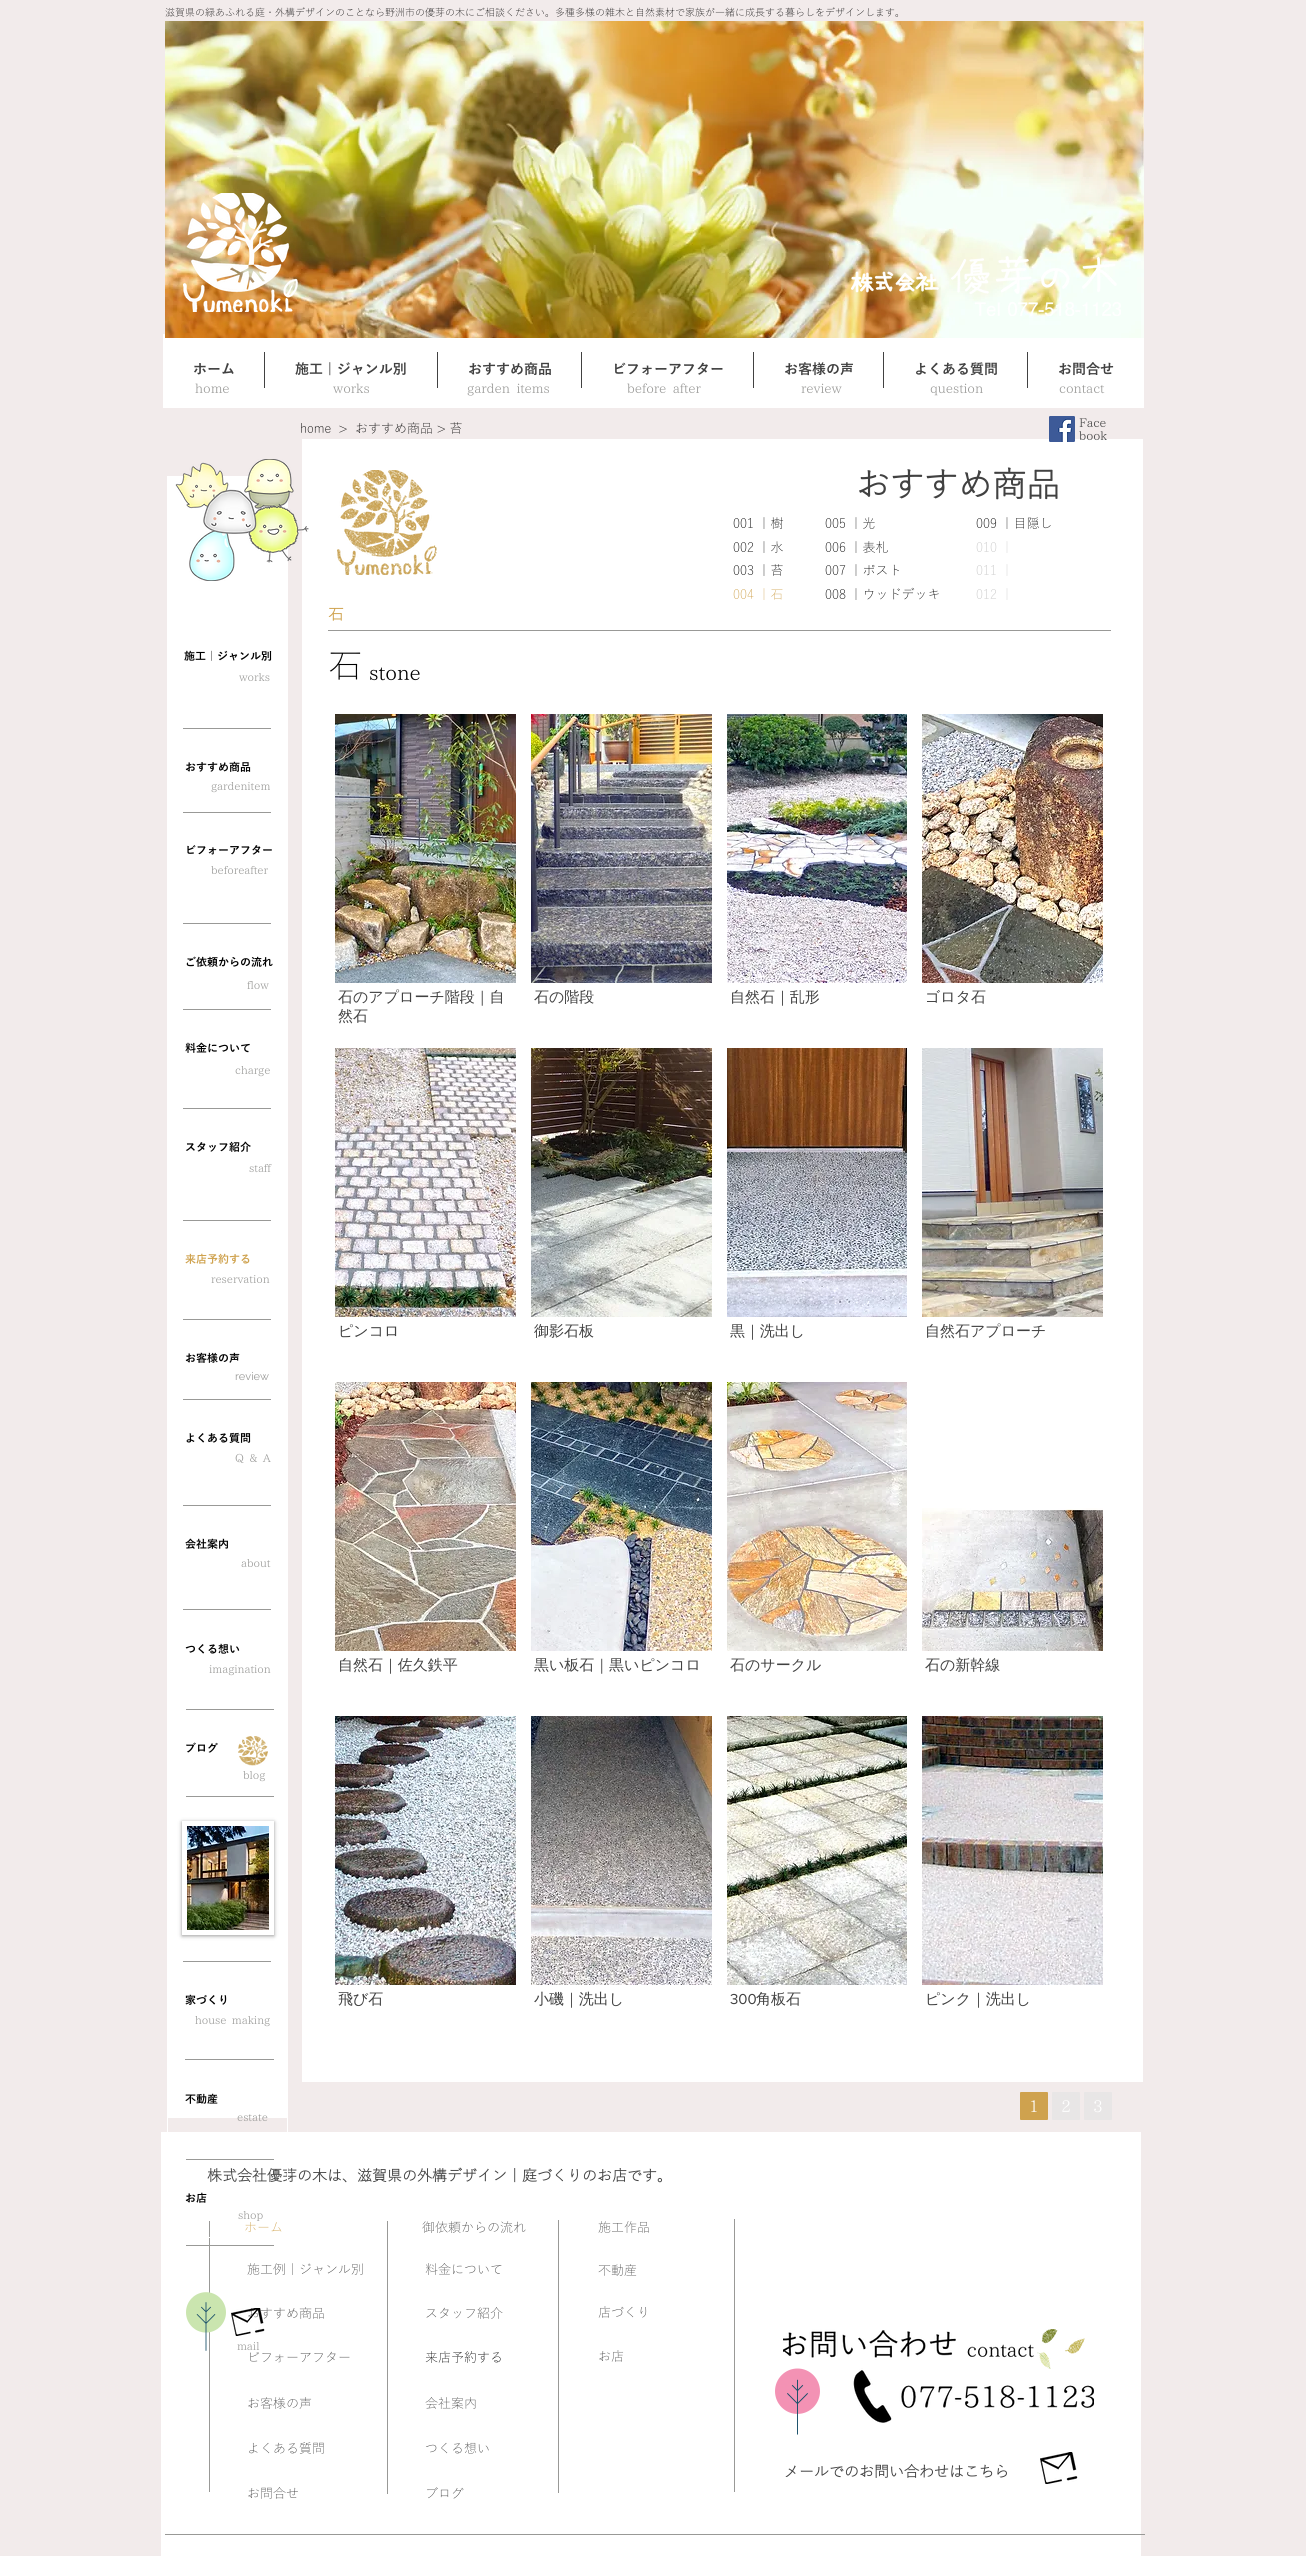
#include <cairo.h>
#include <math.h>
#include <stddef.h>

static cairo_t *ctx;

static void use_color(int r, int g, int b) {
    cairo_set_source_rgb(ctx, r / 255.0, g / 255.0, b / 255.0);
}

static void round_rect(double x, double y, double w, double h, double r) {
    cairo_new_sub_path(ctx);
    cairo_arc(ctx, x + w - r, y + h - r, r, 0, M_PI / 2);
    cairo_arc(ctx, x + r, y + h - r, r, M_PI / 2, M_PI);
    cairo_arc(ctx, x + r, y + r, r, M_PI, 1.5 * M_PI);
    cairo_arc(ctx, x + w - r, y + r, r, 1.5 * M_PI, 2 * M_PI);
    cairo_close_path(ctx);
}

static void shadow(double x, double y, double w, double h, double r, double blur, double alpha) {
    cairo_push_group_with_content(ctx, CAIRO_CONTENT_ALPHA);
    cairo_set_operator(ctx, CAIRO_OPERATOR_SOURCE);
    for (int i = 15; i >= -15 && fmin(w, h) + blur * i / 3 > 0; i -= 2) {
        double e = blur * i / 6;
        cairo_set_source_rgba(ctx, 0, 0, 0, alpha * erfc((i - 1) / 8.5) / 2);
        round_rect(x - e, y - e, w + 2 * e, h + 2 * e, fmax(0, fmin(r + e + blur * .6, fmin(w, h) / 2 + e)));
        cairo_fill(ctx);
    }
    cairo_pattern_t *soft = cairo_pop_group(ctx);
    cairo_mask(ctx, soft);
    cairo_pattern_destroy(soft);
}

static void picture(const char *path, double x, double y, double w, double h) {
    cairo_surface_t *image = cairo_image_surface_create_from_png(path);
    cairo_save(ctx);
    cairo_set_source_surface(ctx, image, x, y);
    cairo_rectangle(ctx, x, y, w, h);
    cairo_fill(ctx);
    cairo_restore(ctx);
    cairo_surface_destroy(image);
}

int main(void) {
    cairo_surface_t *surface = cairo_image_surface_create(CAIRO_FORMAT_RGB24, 1306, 2556);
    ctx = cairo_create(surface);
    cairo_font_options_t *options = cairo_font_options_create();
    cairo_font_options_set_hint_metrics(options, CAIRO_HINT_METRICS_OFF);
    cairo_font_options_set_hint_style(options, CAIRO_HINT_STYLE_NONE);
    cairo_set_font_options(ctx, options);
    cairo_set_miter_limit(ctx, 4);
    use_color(242, 235, 235);
    cairo_paint(ctx);
    cairo_select_font_face(ctx, "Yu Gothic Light", CAIRO_FONT_SLANT_NORMAL, CAIRO_FONT_WEIGHT_NORMAL);
    cairo_set_font_size(ctx, 10);
    use_color(0, 0, 0);
    cairo_move_to(ctx, 165, 16);
    cairo_show_text(ctx, "滋賀県の緑あふれる庭・外構デザインのことなら野洲市の優芽の木にご相談ください。多種多様の雑木と自然素材で家族が一緒に成長する暮らしをデザインします。");
    use_color(255, 255, 255);
    cairo_rectangle(ctx, 163, 334, 981, 74);
    cairo_fill(ctx);
    cairo_rectangle(ctx, 167, 476, 121, 1642);
    cairo_fill(ctx);
    picture("img8.png", 165, 21, 979, 317);
    picture("img1.png", 183, 193, 115, 119);
    picture("img2.png", 851, 256, 270, 60);
    cairo_select_font_face(ctx, "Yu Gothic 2", CAIRO_FONT_SLANT_NORMAL, CAIRO_FONT_WEIGHT_BOLD);
    cairo_set_font_size(ctx, 14);
    use_color(65, 65, 65);
    cairo_move_to(ctx, 193, 374);
    cairo_show_text(ctx, "ホーム");
    cairo_rectangle(ctx, 264, 352, 1, 36);
    cairo_fill(ctx);
    cairo_move_to(ctx, 295, 374);
    cairo_show_text(ctx, "施工 | ジャンル別");
    cairo_rectangle(ctx, 437, 352, 1, 36);
    cairo_fill(ctx);
    cairo_move_to(ctx, 468, 374);
    cairo_show_text(ctx, "おすすめ商品");
    cairo_rectangle(ctx, 581, 352, 1, 36);
    cairo_fill(ctx);
    cairo_move_to(ctx, 612, 374);
    cairo_show_text(ctx, "ビフォーアフター");
    cairo_rectangle(ctx, 753, 352, 1, 36);
    cairo_fill(ctx);
    cairo_move_to(ctx, 784, 374);
    cairo_show_text(ctx, "お客様の声");
    cairo_rectangle(ctx, 883, 352, 1, 36);
    cairo_fill(ctx);
    cairo_move_to(ctx, 914, 374);
    cairo_show_text(ctx, "よくある質問");
    cairo_rectangle(ctx, 1027, 352, 1, 36);
    cairo_fill(ctx);
    cairo_move_to(ctx, 1058, 374);
    cairo_show_text(ctx, "お問合せ");
    cairo_select_font_face(ctx, "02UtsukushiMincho", CAIRO_FONT_SLANT_NORMAL, CAIRO_FONT_WEIGHT_NORMAL);
    cairo_set_font_size(ctx, 13);
    use_color(153, 153, 151);
    cairo_move_to(ctx, 195, 393);
    cairo_show_text(ctx, "home");
    cairo_move_to(ctx, 333, 393);
    cairo_show_text(ctx, "works");
    cairo_move_to(ctx, 467, 393);
    cairo_show_text(ctx, "garden items");
    cairo_move_to(ctx, 627, 393);
    cairo_show_text(ctx, "before after");
    cairo_move_to(ctx, 801, 393);
    cairo_show_text(ctx, "review");
    cairo_move_to(ctx, 930, 393);
    cairo_show_text(ctx, "question");
    cairo_move_to(ctx, 1059, 393);
    cairo_show_text(ctx, "contact");
    use_color(255, 255, 255);
    cairo_rectangle(ctx, 302, 439, 841, 1643);
    cairo_fill(ctx);
    picture("img3.png", 1049, 416, 26, 26);
    cairo_set_font_size(ctx, 12);
    use_color(65, 65, 65);
    cairo_move_to(ctx, 1079, 427);
    cairo_show_text(ctx, "Face");
    cairo_move_to(ctx, 1079, 440);
    cairo_show_text(ctx, "book");
    cairo_select_font_face(ctx, "Yu Gothic 2", CAIRO_FONT_SLANT_NORMAL, CAIRO_FONT_WEIGHT_BOLD);
    cairo_set_font_size(ctx, 11);
    use_color(0, 0, 0);
    cairo_move_to(ctx, 184, 660);
    cairo_show_text(ctx, "施工｜ジャンル別");
    cairo_select_font_face(ctx, "02UtsukushiMincho", CAIRO_FONT_SLANT_NORMAL, CAIRO_FONT_WEIGHT_NORMAL);
    use_color(153, 153, 151);
    cairo_move_to(ctx, 239, 681);
    cairo_show_text(ctx, "works");
    cairo_rectangle(ctx, 183, 728, 88, 1);
    cairo_fill(ctx);
    cairo_select_font_face(ctx, "Yu Gothic 2", CAIRO_FONT_SLANT_NORMAL, CAIRO_FONT_WEIGHT_BOLD);
    use_color(0, 0, 0);
    cairo_move_to(ctx, 185, 771);
    cairo_show_text(ctx, "おすすめ商品");
    cairo_select_font_face(ctx, "02UtsukushiMincho", CAIRO_FONT_SLANT_NORMAL, CAIRO_FONT_WEIGHT_NORMAL);
    use_color(153, 153, 151);
    cairo_move_to(ctx, 211, 790);
    cairo_show_text(ctx, "gardenitem");
    cairo_rectangle(ctx, 183, 812, 88, 1);
    cairo_fill(ctx);
    cairo_select_font_face(ctx, "Yu Gothic 2", CAIRO_FONT_SLANT_NORMAL, CAIRO_FONT_WEIGHT_BOLD);
    use_color(0, 0, 0);
    cairo_move_to(ctx, 185, 854);
    cairo_show_text(ctx, "ビフォーアフター");
    cairo_select_font_face(ctx, "02UtsukushiMincho", CAIRO_FONT_SLANT_NORMAL, CAIRO_FONT_WEIGHT_NORMAL);
    use_color(153, 153, 151);
    cairo_move_to(ctx, 211, 874);
    cairo_show_text(ctx, "beforeafter");
    cairo_rectangle(ctx, 183, 923, 88, 1);
    cairo_fill(ctx);
    cairo_select_font_face(ctx, "Yu Gothic 2", CAIRO_FONT_SLANT_NORMAL, CAIRO_FONT_WEIGHT_BOLD);
    use_color(0, 0, 0);
    cairo_move_to(ctx, 185, 966);
    cairo_show_text(ctx, "ご依頼からの流れ");
    cairo_select_font_face(ctx, "02UtsukushiMincho", CAIRO_FONT_SLANT_NORMAL, CAIRO_FONT_WEIGHT_NORMAL);
    use_color(153, 153, 151);
    cairo_move_to(ctx, 247, 989);
    cairo_show_text(ctx, "flow");
    cairo_rectangle(ctx, 183, 1009, 88, 1);
    cairo_fill(ctx);
    cairo_select_font_face(ctx, "Yu Gothic 2", CAIRO_FONT_SLANT_NORMAL, CAIRO_FONT_WEIGHT_BOLD);
    use_color(0, 0, 0);
    cairo_move_to(ctx, 185, 1052);
    cairo_show_text(ctx, "料金について");
    cairo_select_font_face(ctx, "02UtsukushiMincho", CAIRO_FONT_SLANT_NORMAL, CAIRO_FONT_WEIGHT_NORMAL);
    use_color(153, 153, 151);
    cairo_move_to(ctx, 235, 1074);
    cairo_show_text(ctx, "charge");
    cairo_rectangle(ctx, 183, 1108, 88, 1);
    cairo_fill(ctx);
    cairo_select_font_face(ctx, "Yu Gothic 2", CAIRO_FONT_SLANT_NORMAL, CAIRO_FONT_WEIGHT_BOLD);
    use_color(0, 0, 0);
    cairo_move_to(ctx, 185, 1151);
    cairo_show_text(ctx, "スタッフ紹介");
    cairo_select_font_face(ctx, "02UtsukushiMincho", CAIRO_FONT_SLANT_NORMAL, CAIRO_FONT_WEIGHT_NORMAL);
    use_color(153, 153, 151);
    cairo_move_to(ctx, 249, 1172);
    cairo_show_text(ctx, "staff");
    cairo_rectangle(ctx, 183, 1220, 88, 1);
    cairo_fill(ctx);
    cairo_select_font_face(ctx, "Yu Gothic 2", CAIRO_FONT_SLANT_NORMAL, CAIRO_FONT_WEIGHT_BOLD);
    use_color(207, 162, 78);
    cairo_move_to(ctx, 185, 1263);
    cairo_show_text(ctx, "来店予約する");
    cairo_select_font_face(ctx, "02UtsukushiMincho", CAIRO_FONT_SLANT_NORMAL, CAIRO_FONT_WEIGHT_NORMAL);
    use_color(153, 153, 151);
    cairo_move_to(ctx, 211, 1283);
    cairo_show_text(ctx, "reservation");
    cairo_rectangle(ctx, 183, 1319, 88, 1);
    cairo_fill(ctx);
    cairo_select_font_face(ctx, "Yu Gothic 2", CAIRO_FONT_SLANT_NORMAL, CAIRO_FONT_WEIGHT_BOLD);
    use_color(0, 0, 0);
    cairo_move_to(ctx, 185, 1362);
    cairo_show_text(ctx, "お客様の声");
    cairo_select_font_face(ctx, "Raleway", CAIRO_FONT_SLANT_NORMAL, CAIRO_FONT_WEIGHT_NORMAL);
    use_color(153, 153, 151);
    cairo_move_to(ctx, 235, 1380);
    cairo_show_text(ctx, "review");
    cairo_rectangle(ctx, 183, 1399, 88, 1);
    cairo_fill(ctx);
    cairo_select_font_face(ctx, "Yu Gothic 2", CAIRO_FONT_SLANT_NORMAL, CAIRO_FONT_WEIGHT_BOLD);
    use_color(0, 0, 0);
    cairo_move_to(ctx, 185, 1442);
    cairo_show_text(ctx, "よくある質問");
    cairo_select_font_face(ctx, "02UtsukushiMincho", CAIRO_FONT_SLANT_NORMAL, CAIRO_FONT_WEIGHT_NORMAL);
    use_color(153, 153, 151);
    cairo_move_to(ctx, 235, 1462);
    cairo_show_text(ctx, "Q & A");
    cairo_rectangle(ctx, 183, 1505, 88, 1);
    cairo_fill(ctx);
    cairo_select_font_face(ctx, "Yu Gothic 2", CAIRO_FONT_SLANT_NORMAL, CAIRO_FONT_WEIGHT_BOLD);
    use_color(0, 0, 0);
    cairo_move_to(ctx, 185, 1548);
    cairo_show_text(ctx, "会社案内");
    cairo_select_font_face(ctx, "02UtsukushiMincho", CAIRO_FONT_SLANT_NORMAL, CAIRO_FONT_WEIGHT_NORMAL);
    use_color(153, 153, 151);
    cairo_move_to(ctx, 241, 1567);
    cairo_show_text(ctx, "about");
    cairo_rectangle(ctx, 183, 1609, 88, 1);
    cairo_fill(ctx);
    cairo_select_font_face(ctx, "Yu Gothic 2", CAIRO_FONT_SLANT_NORMAL, CAIRO_FONT_WEIGHT_BOLD);
    use_color(0, 0, 0);
    cairo_move_to(ctx, 185, 1653);
    cairo_show_text(ctx, "つくる想い");
    cairo_select_font_face(ctx, "02UtsukushiMincho", CAIRO_FONT_SLANT_NORMAL, CAIRO_FONT_WEIGHT_NORMAL);
    use_color(153, 153, 151);
    cairo_move_to(ctx, 209, 1673);
    cairo_show_text(ctx, "imagination");
    cairo_rectangle(ctx, 186, 1709, 88, 1);
    cairo_fill(ctx);
    cairo_select_font_face(ctx, "Yu Gothic 2", CAIRO_FONT_SLANT_NORMAL, CAIRO_FONT_WEIGHT_BOLD);
    use_color(0, 0, 0);
    cairo_move_to(ctx, 185, 1752);
    cairo_show_text(ctx, "ブログ");
    picture("img4.png", 238, 1736, 30, 30);
    cairo_select_font_face(ctx, "02UtsukushiMincho", CAIRO_FONT_SLANT_NORMAL, CAIRO_FONT_WEIGHT_NORMAL);
    use_color(153, 153, 151);
    cairo_move_to(ctx, 243, 1779);
    cairo_show_text(ctx, "blog");
    cairo_rectangle(ctx, 186, 1796, 88, 1);
    cairo_fill(ctx);
    cairo_save(ctx);
    cairo_set_fill_rule(ctx, CAIRO_FILL_RULE_EVEN_ODD);
    cairo_new_path(ctx);
    cairo_move_to(ctx, 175, 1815);
    cairo_line_to(ctx, 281, 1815);
    cairo_line_to(ctx, 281, 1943);
    cairo_line_to(ctx, 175, 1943);
    cairo_close_path(ctx);
    cairo_move_to(ctx, 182, 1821);
    cairo_line_to(ctx, 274, 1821);
    cairo_line_to(ctx, 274, 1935);
    cairo_line_to(ctx, 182, 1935);
    cairo_close_path(ctx);
    cairo_clip(ctx);
    use_color(0, 0, 0);
    shadow(182, 1822, 92, 114, 0, 2, 0.4);
    cairo_restore(ctx);
    picture("img5.png", 187, 1826, 82, 104);
    cairo_rectangle(ctx, 183, 1961, 88, 1);
    cairo_fill(ctx);
    cairo_select_font_face(ctx, "Yu Gothic 2", CAIRO_FONT_SLANT_NORMAL, CAIRO_FONT_WEIGHT_BOLD);
    use_color(0, 0, 0);
    cairo_move_to(ctx, 185, 2004);
    cairo_show_text(ctx, "家づくり");
    cairo_select_font_face(ctx, "02UtsukushiMincho", CAIRO_FONT_SLANT_NORMAL, CAIRO_FONT_WEIGHT_NORMAL);
    use_color(153, 153, 151);
    cairo_move_to(ctx, 195, 2024);
    cairo_show_text(ctx, "house making");
    cairo_rectangle(ctx, 185, 2059, 89, 1);
    cairo_fill(ctx);
    use_color(255, 255, 255);
    cairo_rectangle(ctx, 161, 2132, 980, 424);
    cairo_fill(ctx);
    cairo_rectangle(ctx, 167.5, 2061.5, 120, 77);
    cairo_set_line_width(ctx, 1);
    cairo_stroke(ctx);
    cairo_select_font_face(ctx, "Yu Gothic 2", CAIRO_FONT_SLANT_NORMAL, CAIRO_FONT_WEIGHT_BOLD);
    use_color(0, 0, 0);
    cairo_move_to(ctx, 185, 2103);
    cairo_show_text(ctx, "不動産");
    cairo_select_font_face(ctx, "02UtsukushiMincho", CAIRO_FONT_SLANT_NORMAL, CAIRO_FONT_WEIGHT_NORMAL);
    use_color(153, 153, 151);
    cairo_move_to(ctx, 237, 2121);
    cairo_show_text(ctx, "estate");
    cairo_rectangle(ctx, 186, 2159, 88, 1);
    cairo_fill(ctx);
    cairo_select_font_face(ctx, "Yu Gothic", CAIRO_FONT_SLANT_NORMAL, CAIRO_FONT_WEIGHT_BOLD);
    cairo_set_font_size(ctx, 15);
    use_color(65, 65, 65);
    cairo_move_to(ctx, 207, 2181);
    cairo_show_text(ctx, "株式会社優芽の木は、滋賀県の外構デザイン｜庭づくりのお店です。");
    use_color(153, 153, 151);
    cairo_rectangle(ctx, 209, 2221, 1, 271);
    cairo_fill(ctx);
    cairo_rectangle(ctx, 167.5, 2160.5, 120, 77);
    use_color(255, 255, 255);
    cairo_stroke(ctx);
    cairo_select_font_face(ctx, "Yu Gothic 2", CAIRO_FONT_SLANT_NORMAL, CAIRO_FONT_WEIGHT_BOLD);
    cairo_set_font_size(ctx, 11);
    use_color(0, 0, 0);
    cairo_move_to(ctx, 185, 2202);
    cairo_show_text(ctx, "お店");
    cairo_select_font_face(ctx, "02UtsukushiMincho", CAIRO_FONT_SLANT_NORMAL, CAIRO_FONT_WEIGHT_NORMAL);
    use_color(153, 153, 151);
    cairo_move_to(ctx, 238, 2219);
    cairo_show_text(ctx, "shop");
    cairo_rectangle(ctx, 186, 2245, 88, 1);
    cairo_fill(ctx);
    picture("img6.png", 186, 2292, 40, 59);
    cairo_select_font_face(ctx, "Yu Gothic Light", CAIRO_FONT_SLANT_NORMAL, CAIRO_FONT_WEIGHT_NORMAL);
    cairo_set_font_size(ctx, 13);
    use_color(65, 65, 65);
    cairo_move_to(ctx, 247, 2318);
    cairo_show_text(ctx, "おすすめ商品");
    picture("img7.png", 231, 2308, 34, 28);
    cairo_select_font_face(ctx, "02UtsukushiMincho", CAIRO_FONT_SLANT_NORMAL, CAIRO_FONT_WEIGHT_NORMAL);
    cairo_set_font_size(ctx, 11);
    use_color(153, 153, 151);
    cairo_move_to(ctx, 237, 2350);
    cairo_show_text(ctx, "mail");
    cairo_select_font_face(ctx, "Yu Gothic Light", CAIRO_FONT_SLANT_NORMAL, CAIRO_FONT_WEIGHT_NORMAL);
    cairo_set_font_size(ctx, 13);
    use_color(0, 0, 0);
    cairo_move_to(ctx, 300, 433);
    cairo_show_text(ctx, "home  >  おすすめ商品 > 苔");
    picture("img9.png", 175, 462, 54, 47);
    picture("img11.png", 244, 459, 50, 50);
    picture("img12.png", 189, 529, 46, 52);
    picture("img13.png", 239, 505, 70, 58);
    picture("img10.png", 203, 489, 54, 45);
    cairo_select_font_face(ctx, "Yu Gothic", CAIRO_FONT_SLANT_NORMAL, CAIRO_FONT_WEIGHT_BOLD);
    cairo_set_font_size(ctx, 34);
    use_color(65, 65, 65);
    cairo_move_to(ctx, 856, 497);
    cairo_show_text(ctx, "おすすめ商品");
    cairo_set_font_size(ctx, 16);
    use_color(207, 162, 78);
    cairo_move_to(ctx, 328, 620);
    cairo_show_text(ctx, "石");
    use_color(153, 153, 151);
    cairo_rectangle(ctx, 328, 630, 783, 1);
    cairo_fill(ctx);
    picture("img14.png", 337, 470, 100, 105);
    cairo_select_font_face(ctx, "Yu Gothic Light", CAIRO_FONT_SLANT_NORMAL, CAIRO_FONT_WEIGHT_NORMAL);
    cairo_set_font_size(ctx, 13);
    use_color(0, 0, 0);
    cairo_move_to(ctx, 733, 528);
    cairo_show_text(ctx, "001 ｜樹");
    cairo_move_to(ctx, 825, 528);
    cairo_show_text(ctx, "005 ｜光");
    cairo_move_to(ctx, 976, 528);
    cairo_show_text(ctx, "009 ｜目隠し");
    cairo_move_to(ctx, 733, 552);
    cairo_show_text(ctx, "002 ｜水");
    cairo_move_to(ctx, 825, 552);
    cairo_show_text(ctx, "006 ｜表札");
    use_color(199, 199, 199);
    cairo_move_to(ctx, 976, 552);
    cairo_show_text(ctx, "010 ｜");
    use_color(0, 0, 0);
    cairo_move_to(ctx, 733, 575);
    cairo_show_text(ctx, "003 ｜苔");
    cairo_move_to(ctx, 825, 575);
    cairo_show_text(ctx, "007 ｜ポスト");
    use_color(199, 199, 199);
    cairo_move_to(ctx, 976, 575);
    cairo_show_text(ctx, "011 ｜");
    use_color(207, 162, 78);
    cairo_move_to(ctx, 733, 599);
    cairo_show_text(ctx, "004 ｜石");
    use_color(0, 0, 0);
    cairo_move_to(ctx, 825, 599);
    cairo_show_text(ctx, "008 ｜ウッドデッキ");
    use_color(199, 199, 199);
    cairo_move_to(ctx, 976, 599);
    cairo_show_text(ctx, "012 ｜");
    cairo_set_font_size(ctx, 35);
    use_color(0, 0, 0);
    cairo_move_to(ctx, 328, 678);
    cairo_show_text(ctx, "石");
    cairo_select_font_face(ctx, "02UtsukushiMincho", CAIRO_FONT_SLANT_NORMAL, CAIRO_FONT_WEIGHT_NORMAL);
    cairo_set_font_size(ctx, 20);
    cairo_move_to(ctx, 369, 680);
    cairo_show_text(ctx, "stone");
    picture("img15.png", 335, 714, 181, 269);
    cairo_select_font_face(ctx, "WenQuanYi Zen Hei Medium", CAIRO_FONT_SLANT_NORMAL, CAIRO_FONT_WEIGHT_NORMAL);
    cairo_set_font_size(ctx, 15);
    use_color(65, 65, 65);
    cairo_move_to(ctx, 338, 1002);
    cairo_show_text(ctx, "石のアプローチ階段｜自");
    cairo_move_to(ctx, 338, 1021);
    cairo_show_text(ctx, "然石");
    picture("img16.png", 531, 714, 181, 269);
    cairo_move_to(ctx, 534, 1002);
    cairo_show_text(ctx, "石の階段");
    picture("img17.png", 727, 714, 180, 269);
    cairo_move_to(ctx, 730, 1002);
    cairo_show_text(ctx, "自然石｜乱形");
    picture("img18.png", 922, 714, 181, 269);
    cairo_move_to(ctx, 925, 1002);
    cairo_show_text(ctx, "ゴロタ石");
    picture("img19.png", 335, 1048, 181, 269);
    cairo_move_to(ctx, 338, 1336);
    cairo_show_text(ctx, "ピンコロ");
    picture("img20.png", 531, 1048, 181, 269);
    cairo_move_to(ctx, 534, 1336);
    cairo_show_text(ctx, "御影石板");
    picture("img21.png", 727, 1048, 180, 269);
    cairo_move_to(ctx, 730, 1336);
    cairo_show_text(ctx, "黒｜洗出し");
    picture("img22.png", 922, 1048, 181, 269);
    cairo_move_to(ctx, 925, 1336);
    cairo_show_text(ctx, "自然石アプローチ");
    picture("img23.png", 335, 1382, 181, 269);
    cairo_move_to(ctx, 338, 1670);
    cairo_show_text(ctx, "自然石｜佐久鉄平");
    picture("img24.png", 531, 1382, 181, 269);
    cairo_move_to(ctx, 534, 1670);
    cairo_show_text(ctx, "黒い板石｜黒いピンコロ");
    picture("img25.png", 727, 1382, 180, 269);
    cairo_move_to(ctx, 730, 1670);
    cairo_show_text(ctx, "石のサークル");
    picture("img26.png", 922, 1508, 181, 143);
    cairo_move_to(ctx, 925, 1670);
    cairo_show_text(ctx, "石の新幹線");
    picture("img27.png", 335, 1716, 181, 269);
    cairo_move_to(ctx, 338, 2004);
    cairo_show_text(ctx, "飛び石");
    picture("img28.png", 531, 1716, 181, 269);
    cairo_move_to(ctx, 534, 2004);
    cairo_show_text(ctx, "小磯｜洗出し");
    picture("img29.png", 727, 1716, 180, 269);
    cairo_select_font_face(ctx, "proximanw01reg", CAIRO_FONT_SLANT_NORMAL, CAIRO_FONT_WEIGHT_NORMAL);
    cairo_move_to(ctx, 730, 2004);
    cairo_show_text(ctx, "300");
    cairo_select_font_face(ctx, "WenQuanYi Zen Hei Medium", CAIRO_FONT_SLANT_NORMAL, CAIRO_FONT_WEIGHT_NORMAL);
    cairo_move_to(ctx, 756, 2004);
    cairo_show_text(ctx, "角板石");
    picture("img30.png", 922, 1716, 181, 269);
    cairo_move_to(ctx, 925, 2004);
    cairo_show_text(ctx, "ピンク｜洗出し");
    use_color(207, 162, 78);
    round_rect(1020, 2092, 28, 28, 1);
    cairo_fill(ctx);
    cairo_select_font_face(ctx, "02UtsukushiMincho", CAIRO_FONT_SLANT_NORMAL, CAIRO_FONT_WEIGHT_NORMAL);
    cairo_set_font_size(ctx, 16);
    use_color(255, 255, 255);
    cairo_move_to(ctx, 1029, 2112);
    cairo_show_text(ctx, "1");
    use_color(232, 230, 230);
    round_rect(1052, 2092, 28, 28, 1);
    cairo_fill(ctx);
    use_color(255, 255, 255);
    cairo_move_to(ctx, 1061, 2112);
    cairo_show_text(ctx, "2");
    use_color(232, 230, 230);
    round_rect(1084, 2092, 28, 28, 1);
    cairo_fill(ctx);
    use_color(255, 255, 255);
    cairo_move_to(ctx, 1093, 2112);
    cairo_show_text(ctx, "3");
    cairo_select_font_face(ctx, "Yu Gothic Light", CAIRO_FONT_SLANT_NORMAL, CAIRO_FONT_WEIGHT_NORMAL);
    cairo_set_font_size(ctx, 13);
    use_color(207, 162, 78);
    cairo_move_to(ctx, 244, 2232);
    cairo_show_text(ctx, "ホーム");
    use_color(153, 153, 151);
    cairo_rectangle(ctx, 387, 2221, 1, 273);
    cairo_fill(ctx);
    use_color(65, 65, 65);
    cairo_move_to(ctx, 422, 2232);
    cairo_show_text(ctx, "御依頼からの流れ");
    use_color(153, 153, 151);
    cairo_rectangle(ctx, 558, 2220, 1, 273);
    cairo_fill(ctx);
    use_color(65, 65, 65);
    cairo_move_to(ctx, 598, 2232);
    cairo_show_text(ctx, "施工作品");
    use_color(153, 153, 151);
    cairo_rectangle(ctx, 734, 2219, 1, 273);
    cairo_fill(ctx);
    use_color(65, 65, 65);
    cairo_move_to(ctx, 247, 2274);
    cairo_show_text(ctx, "施工例｜ジャンル別");
    cairo_move_to(ctx, 425, 2274);
    cairo_show_text(ctx, "料金について");
    cairo_move_to(ctx, 598, 2275);
    cairo_show_text(ctx, "不動産");
    cairo_move_to(ctx, 425, 2318);
    cairo_show_text(ctx, "スタッフ紹介");
    cairo_move_to(ctx, 598, 2317);
    cairo_show_text(ctx, "店づくり");
    cairo_move_to(ctx, 247, 2362);
    cairo_show_text(ctx, "ビフォーアフター");
    use_color(0, 0, 0);
    cairo_move_to(ctx, 425, 2362);
    cairo_show_text(ctx, "来店予約する");
    use_color(65, 65, 65);
    cairo_move_to(ctx, 598, 2361);
    cairo_show_text(ctx, "お店");
    picture("img31.png", 783, 2329, 311, 94);
    cairo_move_to(ctx, 247, 2408);
    cairo_show_text(ctx, "お客様の声");
    cairo_move_to(ctx, 425, 2408);
    cairo_show_text(ctx, "会社案内");
    picture("img32.png", 775, 2368, 45, 67);
    cairo_move_to(ctx, 247, 2453);
    cairo_show_text(ctx, "よくある質問");
    cairo_move_to(ctx, 425, 2453);
    cairo_show_text(ctx, "つくる想い");
    cairo_select_font_face(ctx, "Yu Gothic", CAIRO_FONT_SLANT_NORMAL, CAIRO_FONT_WEIGHT_BOLD);
    cairo_set_font_size(ctx, 15);
    cairo_move_to(ctx, 784, 2477);
    cairo_show_text(ctx, "メールでのお問い合わせはこちら");
    picture("img33.png", 1040, 2452, 38, 32);
    cairo_select_font_face(ctx, "Yu Gothic Light", CAIRO_FONT_SLANT_NORMAL, CAIRO_FONT_WEIGHT_NORMAL);
    cairo_set_font_size(ctx, 13);
    cairo_move_to(ctx, 247, 2498);
    cairo_show_text(ctx, "お問合せ");
    cairo_move_to(ctx, 425, 2498);
    cairo_show_text(ctx, "ブログ");
    use_color(153, 153, 151);
    cairo_rectangle(ctx, 165, 2534, 980, 1);
    cairo_fill(ctx);
    cairo_surface_write_to_png(surface, "result.png");
    cairo_font_options_destroy(options);
    cairo_destroy(ctx);
    cairo_surface_destroy(surface);
    return 0;
}
